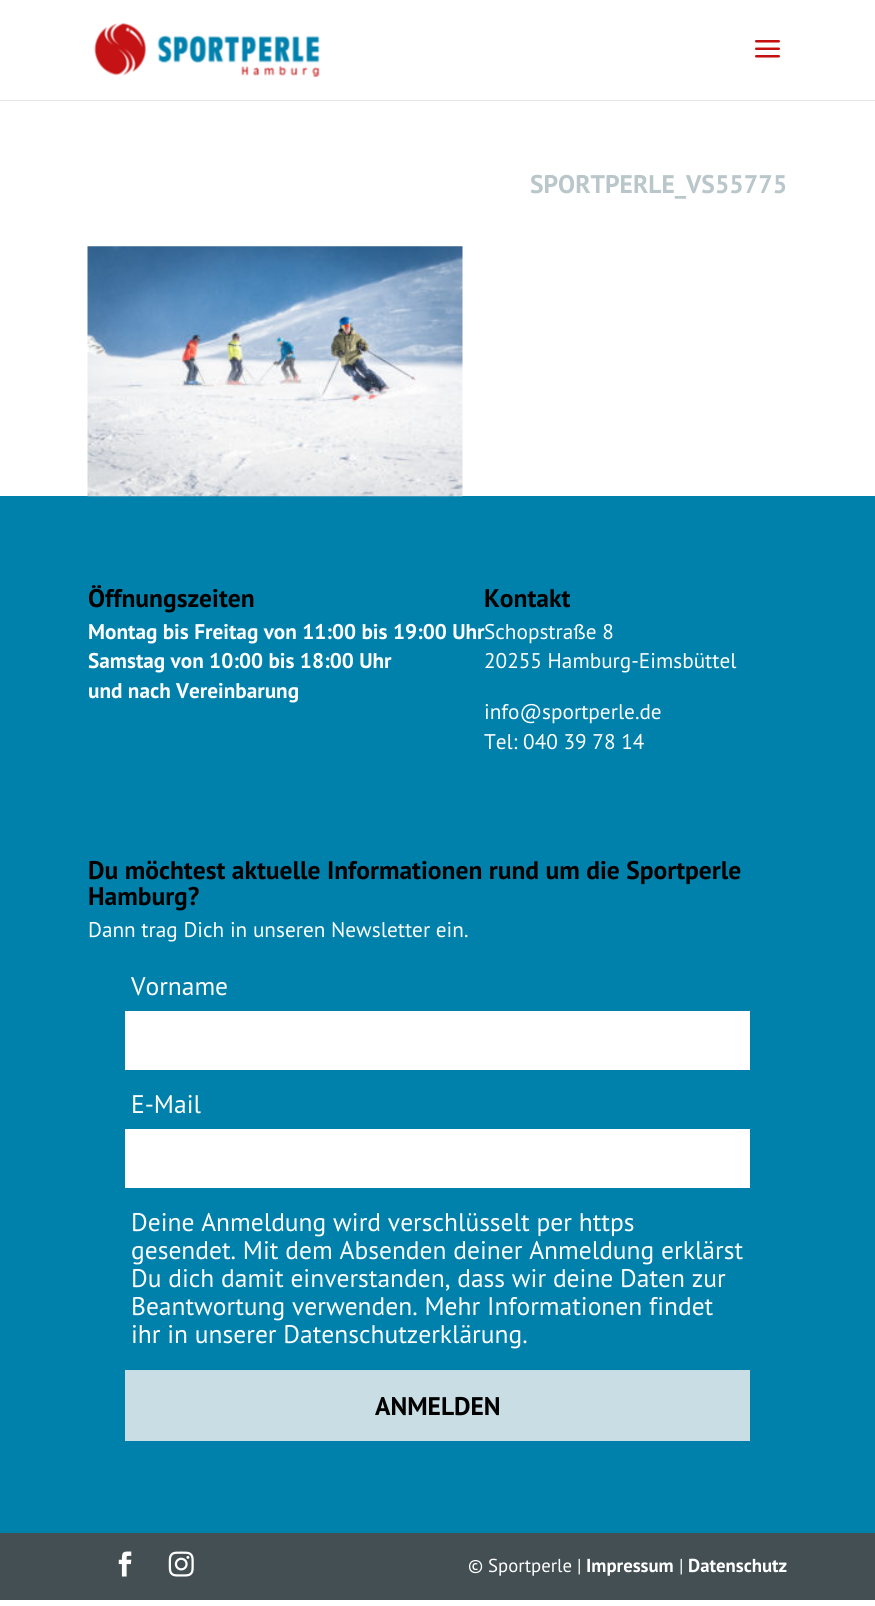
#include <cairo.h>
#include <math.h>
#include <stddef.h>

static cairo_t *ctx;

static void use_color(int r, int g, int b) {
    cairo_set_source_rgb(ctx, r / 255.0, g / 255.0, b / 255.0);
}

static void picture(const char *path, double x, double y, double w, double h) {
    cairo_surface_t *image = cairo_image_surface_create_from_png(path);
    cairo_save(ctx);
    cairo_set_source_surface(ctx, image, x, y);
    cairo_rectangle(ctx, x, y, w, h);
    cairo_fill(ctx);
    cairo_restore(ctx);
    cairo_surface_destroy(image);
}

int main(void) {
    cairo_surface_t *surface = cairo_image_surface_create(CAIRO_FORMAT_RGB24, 875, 1606);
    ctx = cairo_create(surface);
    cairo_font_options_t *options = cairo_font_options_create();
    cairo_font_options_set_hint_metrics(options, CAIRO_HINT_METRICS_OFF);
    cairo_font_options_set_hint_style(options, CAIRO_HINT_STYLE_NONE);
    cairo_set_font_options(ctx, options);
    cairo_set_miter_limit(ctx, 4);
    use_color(255, 255, 255);
    cairo_paint(ctx);
    use_color(230, 230, 230);
    cairo_rectangle(ctx, 0, 100, 875, 1);
    cairo_fill(ctx);
    picture("img1.png", 94, 23, 226, 55);
    picture("img2.png", 755, 40, 25, 18);
    cairo_select_font_face(ctx, "PT Sans", CAIRO_FONT_SLANT_NORMAL, CAIRO_FONT_WEIGHT_BOLD);
    cairo_set_font_size(ctx, 25.5);
    use_color(185, 198, 202);
    cairo_move_to(ctx, 530, 193);
    cairo_show_text(ctx, "SPORTPERLE_VS55775");
    use_color(0, 129, 172);
    cairo_rectangle(ctx, 0, 496, 875, 1037);
    cairo_fill(ctx);
    picture("img3.png", 87, 246, 376, 251);
    use_color(0, 0, 0);
    cairo_move_to(ctx, 88, 607);
    cairo_show_text(ctx, "Öffnungszeiten");
    cairo_set_font_size(ctx, 21.25);
    use_color(255, 255, 255);
    cairo_move_to(ctx, 88, 639);
    cairo_show_text(ctx, "Montag bis Freitag von 11:00 bis 19:00 Uhr");
    cairo_move_to(ctx, 88, 668);
    cairo_show_text(ctx, "Samstag von 10:00 bis 18:00 Uhr");
    cairo_move_to(ctx, 88, 698);
    cairo_show_text(ctx, "und nach Vereinbarung");
    cairo_set_font_size(ctx, 25.5);
    use_color(0, 0, 0);
    cairo_move_to(ctx, 484, 607);
    cairo_show_text(ctx, "Kontakt");
    cairo_select_font_face(ctx, "PT Sans", CAIRO_FONT_SLANT_NORMAL, CAIRO_FONT_WEIGHT_NORMAL);
    cairo_set_font_size(ctx, 21.25);
    use_color(255, 255, 255);
    cairo_move_to(ctx, 484, 639);
    cairo_show_text(ctx, "Schopstraße 8");
    cairo_move_to(ctx, 484, 668);
    cairo_show_text(ctx, "20255 Hamburg-Eimsbüttel");
    cairo_move_to(ctx, 484, 719);
    cairo_show_text(ctx, "info@sportperle.de");
    cairo_move_to(ctx, 484, 749);
    cairo_show_text(ctx, "Tel: 040 39 78 14");
    cairo_select_font_face(ctx, "PT Sans", CAIRO_FONT_SLANT_NORMAL, CAIRO_FONT_WEIGHT_BOLD);
    cairo_set_font_size(ctx, 25.5);
    use_color(0, 0, 0);
    cairo_move_to(ctx, 88, 879);
    cairo_show_text(ctx, "Du möchtest aktuelle Informationen rund um die Sportperle");
    cairo_move_to(ctx, 88, 905);
    cairo_show_text(ctx, "Hamburg?");
    cairo_select_font_face(ctx, "PT Sans", CAIRO_FONT_SLANT_NORMAL, CAIRO_FONT_WEIGHT_NORMAL);
    cairo_set_font_size(ctx, 21.25);
    use_color(255, 255, 255);
    cairo_move_to(ctx, 88, 937);
    cairo_show_text(ctx, "Dann trag Dich in unseren Newsletter ein.");
    cairo_set_font_size(ctx, 25.5);
    cairo_move_to(ctx, 131, 995);
    cairo_show_text(ctx, "Vorname");
    cairo_rectangle(ctx, 125, 1011, 625, 59);
    cairo_fill(ctx);
    cairo_move_to(ctx, 131, 1113);
    cairo_show_text(ctx, "E-Mail");
    cairo_rectangle(ctx, 125, 1129, 625, 59);
    cairo_fill(ctx);
    cairo_move_to(ctx, 131, 1231);
    cairo_show_text(ctx, "Deine Anmeldung wird verschlüsselt per https");
    cairo_move_to(ctx, 131, 1259);
    cairo_show_text(ctx, "gesendet. Mit dem Absenden deiner Anmeldung erklärst");
    cairo_move_to(ctx, 131, 1287);
    cairo_show_text(ctx, "Du dich damit einverstanden, dass wir deine Daten zur");
    cairo_move_to(ctx, 131, 1315);
    cairo_show_text(ctx, "Beantwortung verwenden. Mehr Informationen findet");
    cairo_move_to(ctx, 131, 1343);
    cairo_show_text(ctx, "ihr in unserer Datenschutzerklärung.");
    use_color(201, 221, 228);
    cairo_rectangle(ctx, 125, 1370, 625, 71);
    cairo_fill(ctx);
    cairo_select_font_face(ctx, "PT Sans", CAIRO_FONT_SLANT_NORMAL, CAIRO_FONT_WEIGHT_BOLD);
    use_color(0, 0, 0);
    cairo_move_to(ctx, 375, 1415);
    cairo_show_text(ctx, "ANMELDEN");
    use_color(67, 79, 83);
    cairo_rectangle(ctx, 0, 1533, 875, 67);
    cairo_fill(ctx);
    picture("img4.png", 118, 1551, 14, 26);
    picture("img5.png", 168, 1551, 26, 26);
    cairo_select_font_face(ctx, "PT Sans", CAIRO_FONT_SLANT_NORMAL, CAIRO_FONT_WEIGHT_NORMAL);
    cairo_set_font_size(ctx, 18.75);
    use_color(255, 255, 255);
    cairo_move_to(ctx, 468, 1572);
    cairo_show_text(ctx, "© Sportperle |");
    cairo_select_font_face(ctx, "PT Sans", CAIRO_FONT_SLANT_NORMAL, CAIRO_FONT_WEIGHT_BOLD);
    cairo_move_to(ctx, 586, 1572);
    cairo_show_text(ctx, "Impressum");
    cairo_select_font_face(ctx, "PT Sans", CAIRO_FONT_SLANT_NORMAL, CAIRO_FONT_WEIGHT_NORMAL);
    cairo_move_to(ctx, 679, 1572);
    cairo_show_text(ctx, "|");
    cairo_select_font_face(ctx, "PT Sans", CAIRO_FONT_SLANT_NORMAL, CAIRO_FONT_WEIGHT_BOLD);
    cairo_move_to(ctx, 688, 1572);
    cairo_show_text(ctx, "Datenschutz");
    cairo_surface_write_to_png(surface, "result.png");
    cairo_font_options_destroy(options);
    cairo_destroy(ctx);
    cairo_surface_destroy(surface);
    return 0;
}
